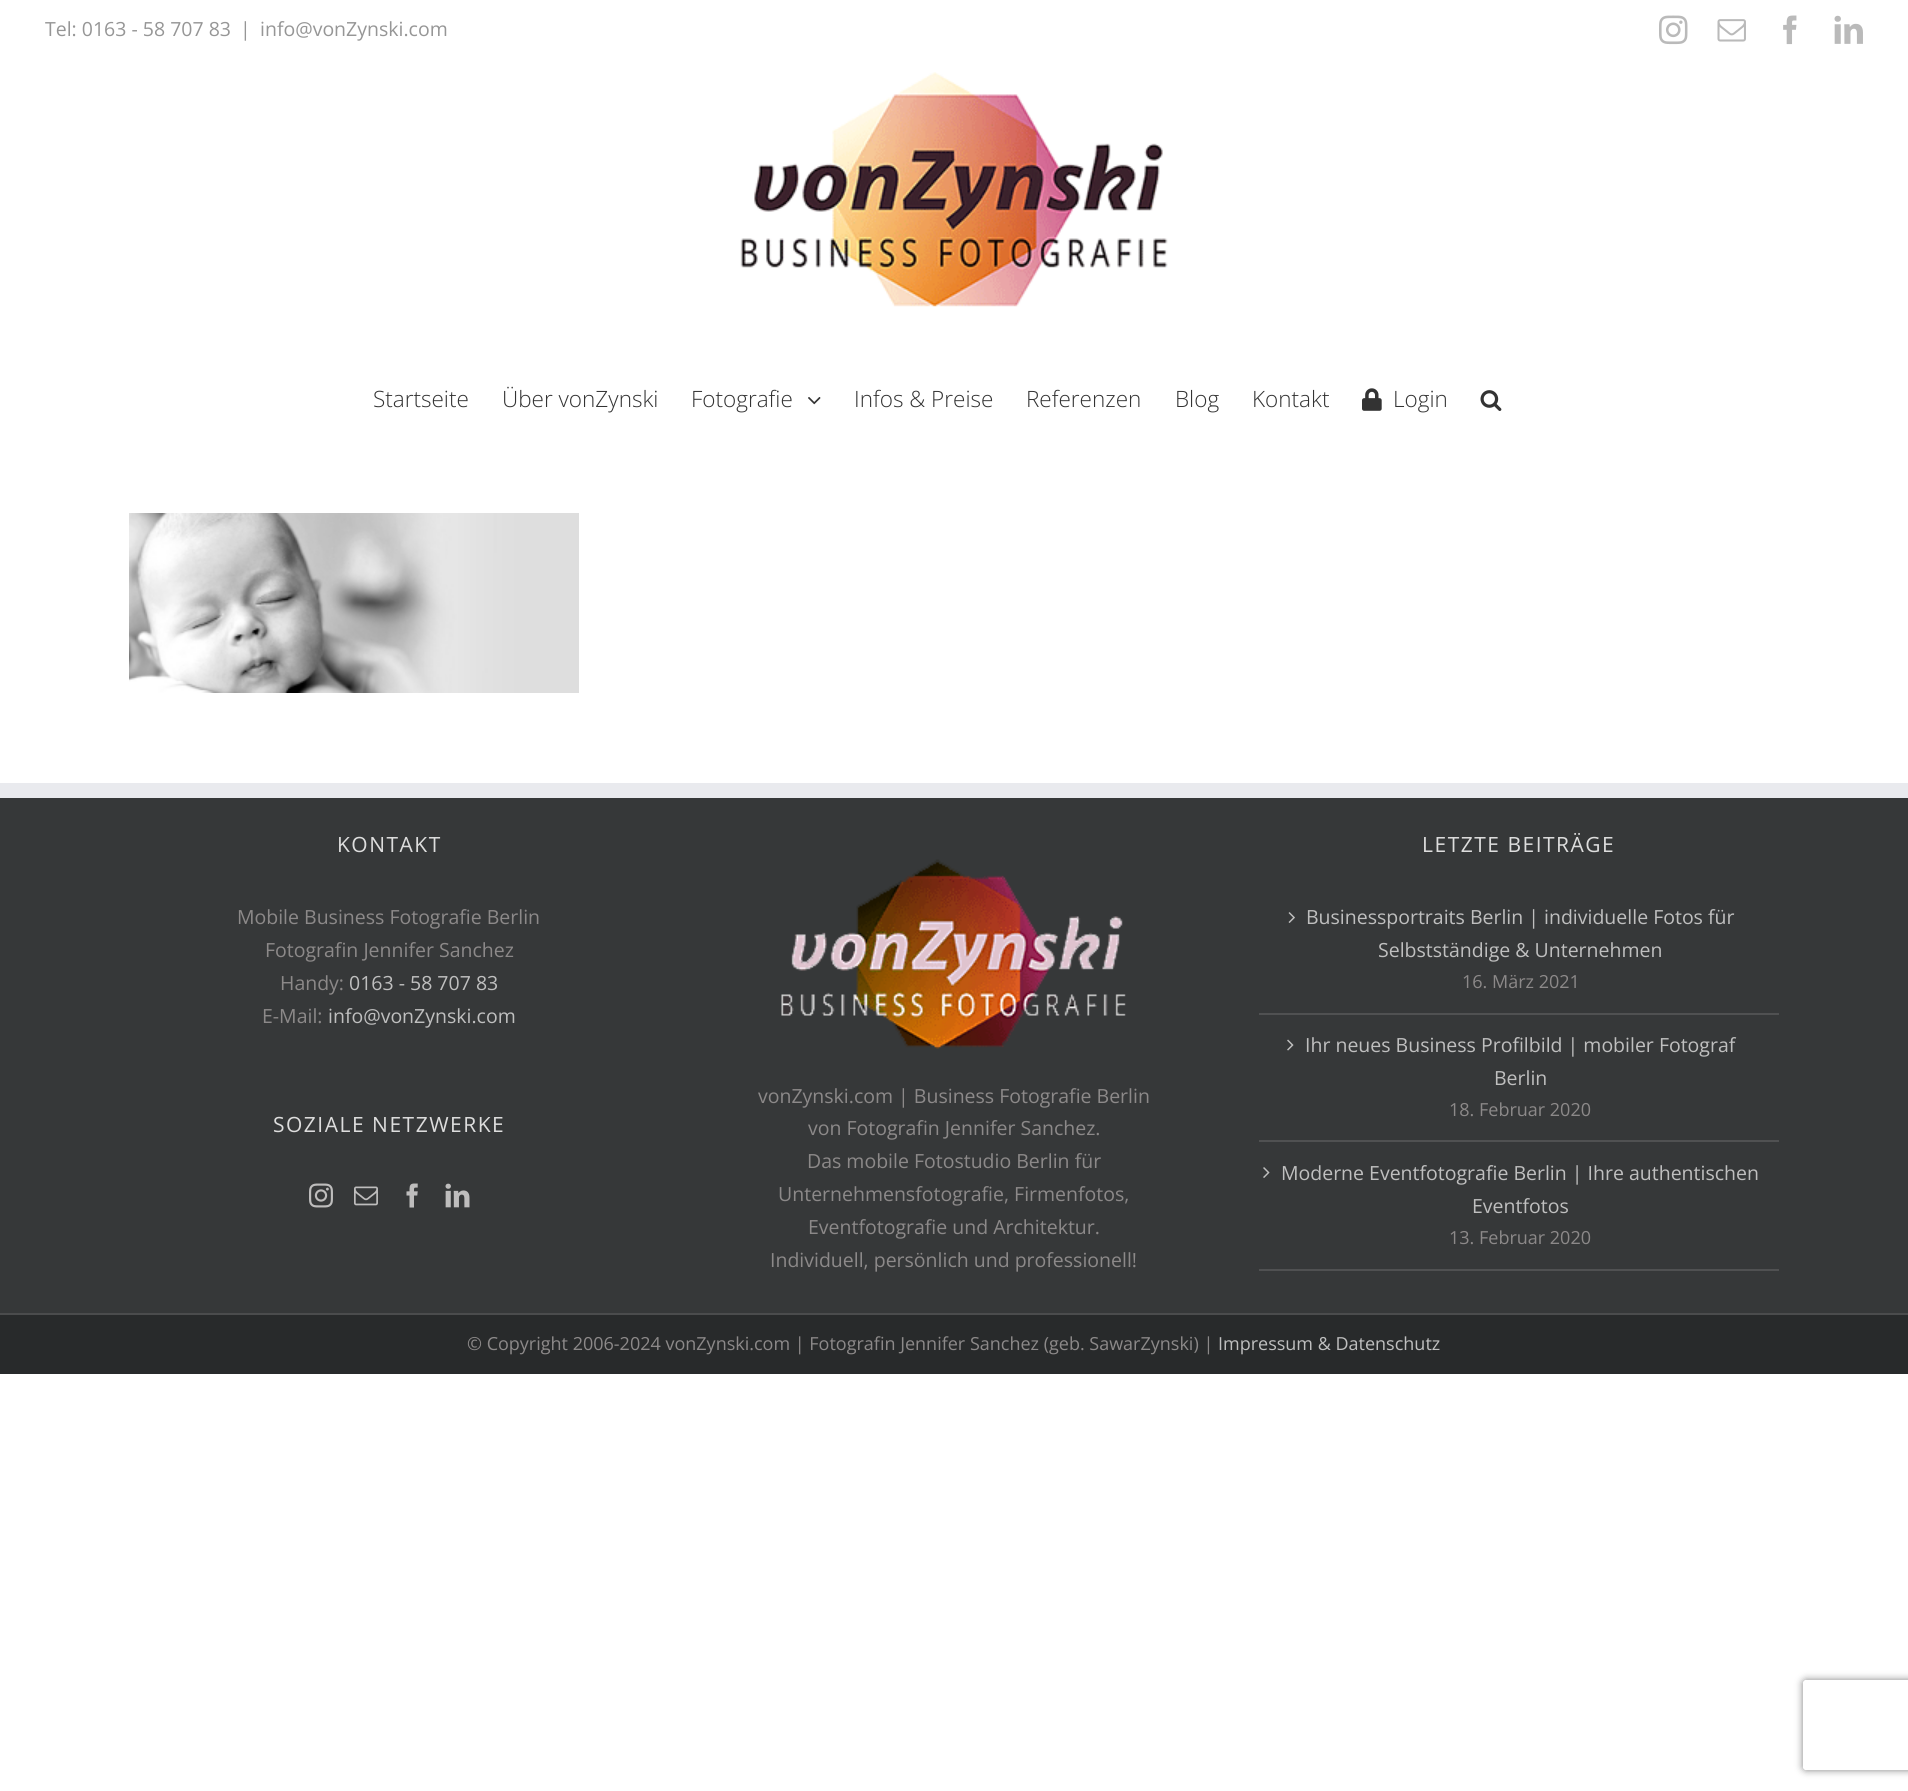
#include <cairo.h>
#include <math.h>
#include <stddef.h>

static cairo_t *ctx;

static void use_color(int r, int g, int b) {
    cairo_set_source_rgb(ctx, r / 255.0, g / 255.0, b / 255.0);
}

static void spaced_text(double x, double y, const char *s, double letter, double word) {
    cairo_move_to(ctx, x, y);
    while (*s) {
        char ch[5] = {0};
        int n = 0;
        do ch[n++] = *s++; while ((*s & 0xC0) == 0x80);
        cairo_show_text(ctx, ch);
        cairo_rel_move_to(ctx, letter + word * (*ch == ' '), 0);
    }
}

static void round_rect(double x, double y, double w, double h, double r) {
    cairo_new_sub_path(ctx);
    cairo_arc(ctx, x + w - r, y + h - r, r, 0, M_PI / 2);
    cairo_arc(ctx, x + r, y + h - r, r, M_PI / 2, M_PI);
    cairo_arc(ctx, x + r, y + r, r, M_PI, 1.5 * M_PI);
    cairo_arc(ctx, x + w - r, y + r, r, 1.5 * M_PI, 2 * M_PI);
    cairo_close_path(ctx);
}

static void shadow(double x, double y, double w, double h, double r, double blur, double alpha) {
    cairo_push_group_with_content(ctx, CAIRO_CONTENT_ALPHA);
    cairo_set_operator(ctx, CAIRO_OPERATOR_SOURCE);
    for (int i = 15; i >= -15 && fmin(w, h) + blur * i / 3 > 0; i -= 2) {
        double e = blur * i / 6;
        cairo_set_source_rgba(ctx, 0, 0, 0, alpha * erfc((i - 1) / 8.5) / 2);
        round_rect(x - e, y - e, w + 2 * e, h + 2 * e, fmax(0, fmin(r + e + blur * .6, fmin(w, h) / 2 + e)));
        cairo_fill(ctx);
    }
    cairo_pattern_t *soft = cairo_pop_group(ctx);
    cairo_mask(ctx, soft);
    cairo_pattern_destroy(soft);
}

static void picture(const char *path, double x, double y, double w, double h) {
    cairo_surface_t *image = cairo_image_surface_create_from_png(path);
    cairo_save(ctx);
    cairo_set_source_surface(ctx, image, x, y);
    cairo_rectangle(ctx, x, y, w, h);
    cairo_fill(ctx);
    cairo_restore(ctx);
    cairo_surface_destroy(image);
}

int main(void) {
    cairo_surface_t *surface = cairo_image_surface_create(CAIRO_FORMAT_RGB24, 1908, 1791);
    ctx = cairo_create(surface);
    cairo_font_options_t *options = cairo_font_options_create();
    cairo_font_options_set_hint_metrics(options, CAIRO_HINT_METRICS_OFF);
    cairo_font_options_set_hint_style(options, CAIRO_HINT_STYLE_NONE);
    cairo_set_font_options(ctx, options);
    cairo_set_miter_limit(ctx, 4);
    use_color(255, 255, 255);
    cairo_paint(ctx);
    cairo_select_font_face(ctx, "Open Sans", CAIRO_FONT_SLANT_NORMAL, CAIRO_FONT_WEIGHT_NORMAL);
    cairo_set_font_size(ctx, 19.5);
    use_color(150, 150, 150);
    cairo_move_to(ctx, 45, 36);
    cairo_show_text(ctx, "Tel: 0163 - 58 707 83");
    cairo_move_to(ctx, 240, 36);
    cairo_show_text(ctx, "|");
    cairo_move_to(ctx, 260, 36);
    cairo_show_text(ctx, "info@vonZynski.com");
    picture("img1.png", 1659, 15, 29, 30);
    picture("img2.png", 1717, 19, 29, 23);
    picture("img3.png", 1783, 15, 14, 30);
    picture("img4.png", 1834, 15, 29, 29);
    picture("img5.png", 740, 72, 428, 235);
    cairo_select_font_face(ctx, "Open Sans Light", CAIRO_FONT_SLANT_NORMAL, CAIRO_FONT_WEIGHT_NORMAL);
    cairo_set_font_size(ctx, 22.5);
    use_color(51, 51, 51);
    cairo_move_to(ctx, 373, 407);
    cairo_show_text(ctx, "Startseite");
    cairo_move_to(ctx, 502, 407);
    cairo_show_text(ctx, "Über vonZynski");
    cairo_move_to(ctx, 691, 407);
    cairo_show_text(ctx, "Fotografie");
    picture("img6.png", 808, 397, 13, 8);
    cairo_move_to(ctx, 854, 407);
    cairo_show_text(ctx, "Infos & Preise");
    cairo_move_to(ctx, 1026, 407);
    cairo_show_text(ctx, "Referenzen");
    cairo_move_to(ctx, 1175, 407);
    cairo_show_text(ctx, "Blog");
    cairo_move_to(ctx, 1252, 407);
    cairo_show_text(ctx, "Kontakt");
    picture("img7.png", 1362, 388, 20, 23);
    cairo_move_to(ctx, 1393, 407);
    cairo_show_text(ctx, "Login");
    picture("img8.png", 1480, 390, 22, 21);
    picture("img9.png", 129, 513, 450, 180);
    use_color(54, 56, 57);
    cairo_rectangle(ctx, 0, 798, 1908, 515);
    cairo_fill(ctx);
    use_color(233, 234, 238);
    cairo_rectangle(ctx, 0, 783, 1908, 15);
    cairo_fill(ctx);
    cairo_select_font_face(ctx, "Open Sans", CAIRO_FONT_SLANT_NORMAL, CAIRO_FONT_WEIGHT_NORMAL);
    cairo_set_font_size(ctx, 21);
    use_color(221, 221, 221);
    spaced_text(337, 852, "KONTAKT", 1.5, 0);
    cairo_set_font_size(ctx, 19.5);
    use_color(140, 137, 137);
    cairo_move_to(ctx, 237, 924);
    cairo_show_text(ctx, "Mobile Business Fotografie Berlin");
    cairo_move_to(ctx, 265, 957);
    cairo_show_text(ctx, "Fotografin Jennifer Sanchez");
    cairo_move_to(ctx, 280, 990);
    cairo_show_text(ctx, "Handy:");
    use_color(191, 191, 191);
    cairo_move_to(ctx, 349, 990);
    cairo_show_text(ctx, "0163 - 58 707 83");
    use_color(140, 137, 137);
    cairo_move_to(ctx, 262, 1023);
    cairo_show_text(ctx, "E-Mail:");
    use_color(191, 191, 191);
    cairo_move_to(ctx, 328, 1023);
    cairo_show_text(ctx, "info@vonZynski.com");
    cairo_set_font_size(ctx, 21);
    use_color(221, 221, 221);
    spaced_text(273, 1132, "SOZIALE NETZWERKE", 1.5, 0);
    picture("img10.png", 309, 1183, 24, 25);
    picture("img11.png", 354, 1186, 24, 20);
    picture("img12.png", 406, 1183, 12, 25);
    picture("img13.png", 445, 1183, 25, 25);
    spaced_text(1422, 852, "LETZTE BEITRÄGE", 1.5, 0);
    use_color(80, 81, 82);
    cairo_rectangle(ctx, 1259, 1013, 520, 2);
    cairo_fill(ctx);
    picture("img14.png", 1288, 912, 7, 11);
    cairo_set_font_size(ctx, 19.5);
    use_color(191, 191, 191);
    cairo_move_to(ctx, 1306, 924);
    cairo_show_text(ctx, "Businessportraits Berlin | individuelle Fotos für");
    cairo_move_to(ctx, 1378, 957);
    cairo_show_text(ctx, "Selbstständige & Unternehmen");
    cairo_set_font_size(ctx, 18);
    use_color(140, 137, 137);
    cairo_move_to(ctx, 1462, 988);
    cairo_show_text(ctx, "16. März 2021");
    use_color(80, 81, 82);
    cairo_rectangle(ctx, 1259, 1140, 520, 2);
    cairo_fill(ctx);
    picture("img15.png", 1287, 1039, 7, 12);
    cairo_set_font_size(ctx, 19.5);
    use_color(191, 191, 191);
    cairo_move_to(ctx, 1305, 1052);
    cairo_show_text(ctx, "Ihr neues Business Profilbild | mobiler Fotograf");
    cairo_move_to(ctx, 1494, 1085);
    cairo_show_text(ctx, "Berlin");
    cairo_set_font_size(ctx, 18);
    use_color(140, 137, 137);
    cairo_move_to(ctx, 1449, 1116);
    cairo_show_text(ctx, "18. Februar 2020");
    use_color(80, 81, 82);
    cairo_rectangle(ctx, 1259, 1269, 520, 2);
    cairo_fill(ctx);
    picture("img16.png", 1263, 1167, 7, 11);
    cairo_set_font_size(ctx, 19.5);
    use_color(191, 191, 191);
    cairo_move_to(ctx, 1281, 1180);
    cairo_show_text(ctx, "Moderne Eventfotografie Berlin | Ihre authentischen");
    cairo_move_to(ctx, 1472, 1213);
    cairo_show_text(ctx, "Eventfotos");
    cairo_set_font_size(ctx, 18);
    use_color(140, 137, 137);
    cairo_move_to(ctx, 1449, 1244);
    cairo_show_text(ctx, "13. Februar 2020");
    picture("img17.png", 781, 859, 345, 190);
    cairo_set_font_size(ctx, 19.5);
    cairo_move_to(ctx, 758, 1103);
    cairo_show_text(ctx, "vonZynski.com | Business Fotografie Berlin");
    cairo_move_to(ctx, 808, 1135);
    cairo_show_text(ctx, "von Fotografin Jennifer Sanchez.");
    cairo_move_to(ctx, 807, 1168);
    cairo_show_text(ctx, "Das mobile Fotostudio Berlin für");
    cairo_move_to(ctx, 778, 1201);
    cairo_show_text(ctx, "Unternehmensfotografie, Firmenfotos,");
    cairo_move_to(ctx, 808, 1234);
    cairo_show_text(ctx, "Eventfotografie und Architektur.");
    cairo_move_to(ctx, 770, 1267);
    cairo_show_text(ctx, "Individuell, persönlich und professionell!");
    use_color(40, 42, 43);
    cairo_rectangle(ctx, 0, 1315, 1908, 59);
    cairo_fill(ctx);
    use_color(75, 76, 77);
    cairo_rectangle(ctx, 0, 1313, 1908, 2);
    cairo_fill(ctx);
    cairo_set_font_size(ctx, 18);
    use_color(140, 137, 137);
    cairo_move_to(ctx, 467, 1350);
    cairo_show_text(ctx, "© Copyright 2006-2024 vonZynski.com | Fotografin Jennifer Sanchez (geb. SawarZynski) |");
    use_color(191, 191, 191);
    cairo_move_to(ctx, 1218, 1350);
    cairo_show_text(ctx, "Impressum & Datenschutz");
    cairo_save(ctx);
    cairo_set_fill_rule(ctx, CAIRO_FILL_RULE_EVEN_ODD);
    cairo_new_path(ctx);
    cairo_move_to(ctx, 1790, 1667);
    cairo_line_to(ctx, 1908, 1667);
    cairo_line_to(ctx, 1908, 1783);
    cairo_line_to(ctx, 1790, 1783);
    cairo_close_path(ctx);
    cairo_move_to(ctx, 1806, 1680);
    cairo_line_to(ctx, 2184, 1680);
    cairo_curve_to(ctx, 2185.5, 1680, 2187, 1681.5, 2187, 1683);
    cairo_line_to(ctx, 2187, 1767);
    cairo_curve_to(ctx, 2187, 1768.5, 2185.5, 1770, 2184, 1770);
    cairo_line_to(ctx, 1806, 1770);
    cairo_curve_to(ctx, 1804.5, 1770, 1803, 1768.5, 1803, 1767);
    cairo_line_to(ctx, 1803, 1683);
    cairo_curve_to(ctx, 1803, 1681.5, 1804.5, 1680, 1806, 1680);
    cairo_close_path(ctx);
    cairo_clip(ctx);
    use_color(128, 128, 128);
    shadow(1803, 1680, 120, 90, 3, 4, 1);
    cairo_restore(ctx);
    cairo_surface_write_to_png(surface, "result.png");
    cairo_font_options_destroy(options);
    cairo_destroy(ctx);
    cairo_surface_destroy(surface);
    return 0;
}
